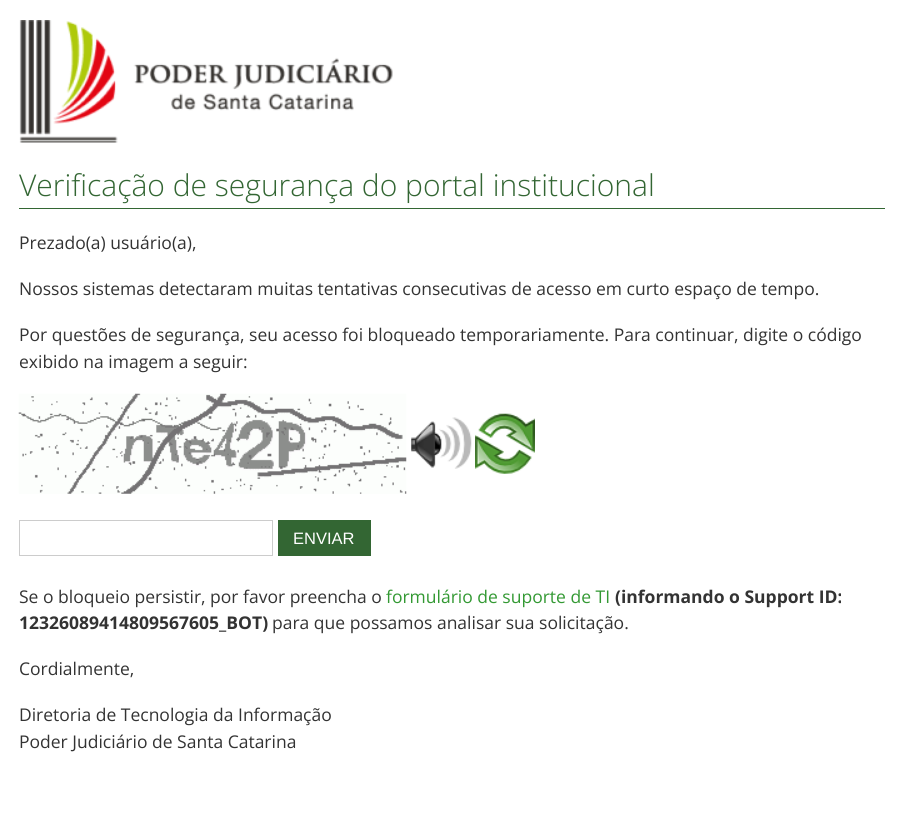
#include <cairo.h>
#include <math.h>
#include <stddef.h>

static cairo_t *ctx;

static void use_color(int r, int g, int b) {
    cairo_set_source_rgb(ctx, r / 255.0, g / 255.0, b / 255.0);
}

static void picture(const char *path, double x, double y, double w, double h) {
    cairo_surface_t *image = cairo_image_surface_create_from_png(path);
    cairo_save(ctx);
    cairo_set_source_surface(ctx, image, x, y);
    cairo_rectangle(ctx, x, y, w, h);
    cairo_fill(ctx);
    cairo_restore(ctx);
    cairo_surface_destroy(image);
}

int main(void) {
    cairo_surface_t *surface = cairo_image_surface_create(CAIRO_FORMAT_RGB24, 903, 840);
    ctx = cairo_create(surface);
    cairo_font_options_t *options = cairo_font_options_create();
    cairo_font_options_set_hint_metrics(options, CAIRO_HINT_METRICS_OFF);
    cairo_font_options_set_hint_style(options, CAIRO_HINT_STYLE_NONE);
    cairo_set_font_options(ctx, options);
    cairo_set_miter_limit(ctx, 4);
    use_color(255, 255, 255);
    cairo_paint(ctx);
    picture("img1.png", 19, 20, 374, 123);
    use_color(51, 102, 51);
    cairo_rectangle(ctx, 19, 208, 866, 1);
    cairo_fill(ctx);
    cairo_select_font_face(ctx, "Open Sans Light", CAIRO_FONT_SLANT_NORMAL, CAIRO_FONT_WEIGHT_NORMAL);
    cairo_set_font_size(ctx, 30);
    cairo_move_to(ctx, 19, 196);
    cairo_show_text(ctx, "Verificação de segurança do portal institucional");
    cairo_select_font_face(ctx, "Open Sans", CAIRO_FONT_SLANT_NORMAL, CAIRO_FONT_WEIGHT_NORMAL);
    cairo_set_font_size(ctx, 17.5);
    use_color(51, 51, 51);
    cairo_move_to(ctx, 19, 249);
    cairo_show_text(ctx, "Prezado(a) usuário(a),");
    cairo_move_to(ctx, 19, 295);
    cairo_show_text(ctx, "Nossos sistemas detectaram muitas tentativas consecutivas de acesso em curto espaço de tempo.");
    cairo_move_to(ctx, 19, 341);
    cairo_show_text(ctx, "Por questões de segurança, seu acesso foi bloqueado temporariamente. Para continuar, digite o código");
    cairo_move_to(ctx, 19, 368);
    cairo_show_text(ctx, "exibido na imagem a seguir:");
    picture("img2.png", 18, 393, 389, 101);
    picture("img3.png", 411, 417, 61, 52);
    picture("img4.png", 475, 413, 60, 61);
    cairo_rectangle(ctx, 19.5, 520.5, 253, 35);
    use_color(204, 204, 204);
    cairo_set_line_width(ctx, 1);
    cairo_stroke(ctx);
    use_color(51, 102, 51);
    cairo_rectangle(ctx, 278, 520, 93, 36);
    cairo_fill(ctx);
    cairo_select_font_face(ctx, "Liberation Sans", CAIRO_FONT_SLANT_NORMAL, CAIRO_FONT_WEIGHT_NORMAL);
    cairo_set_font_size(ctx, 16.5);
    use_color(255, 255, 255);
    cairo_move_to(ctx, 293, 544);
    cairo_show_text(ctx, "ENVIAR");
    cairo_select_font_face(ctx, "Open Sans", CAIRO_FONT_SLANT_NORMAL, CAIRO_FONT_WEIGHT_NORMAL);
    cairo_set_font_size(ctx, 17.5);
    use_color(51, 51, 51);
    cairo_move_to(ctx, 19, 603);
    cairo_show_text(ctx, "Se o bloqueio persistir, por favor preencha o");
    use_color(51, 153, 51);
    cairo_move_to(ctx, 386, 603);
    cairo_show_text(ctx, "formulário de suporte de TI");
    cairo_select_font_face(ctx, "Open Sans", CAIRO_FONT_SLANT_NORMAL, CAIRO_FONT_WEIGHT_BOLD);
    use_color(51, 51, 51);
    cairo_move_to(ctx, 615, 603);
    cairo_show_text(ctx, "(informando o Support ID:");
    cairo_move_to(ctx, 19, 629);
    cairo_show_text(ctx, "12326089414809567605_BOT)");
    cairo_select_font_face(ctx, "Open Sans", CAIRO_FONT_SLANT_NORMAL, CAIRO_FONT_WEIGHT_NORMAL);
    cairo_move_to(ctx, 272, 629);
    cairo_show_text(ctx, "para que possamos analisar sua solicitação.");
    cairo_move_to(ctx, 19, 675);
    cairo_show_text(ctx, "Cordialmente,");
    cairo_move_to(ctx, 19, 721);
    cairo_show_text(ctx, "Diretoria de Tecnologia da Informação");
    cairo_move_to(ctx, 19, 748);
    cairo_show_text(ctx, "Poder Judiciário de Santa Catarina");
    cairo_surface_write_to_png(surface, "result.png");
    cairo_font_options_destroy(options);
    cairo_destroy(ctx);
    cairo_surface_destroy(surface);
    return 0;
}
